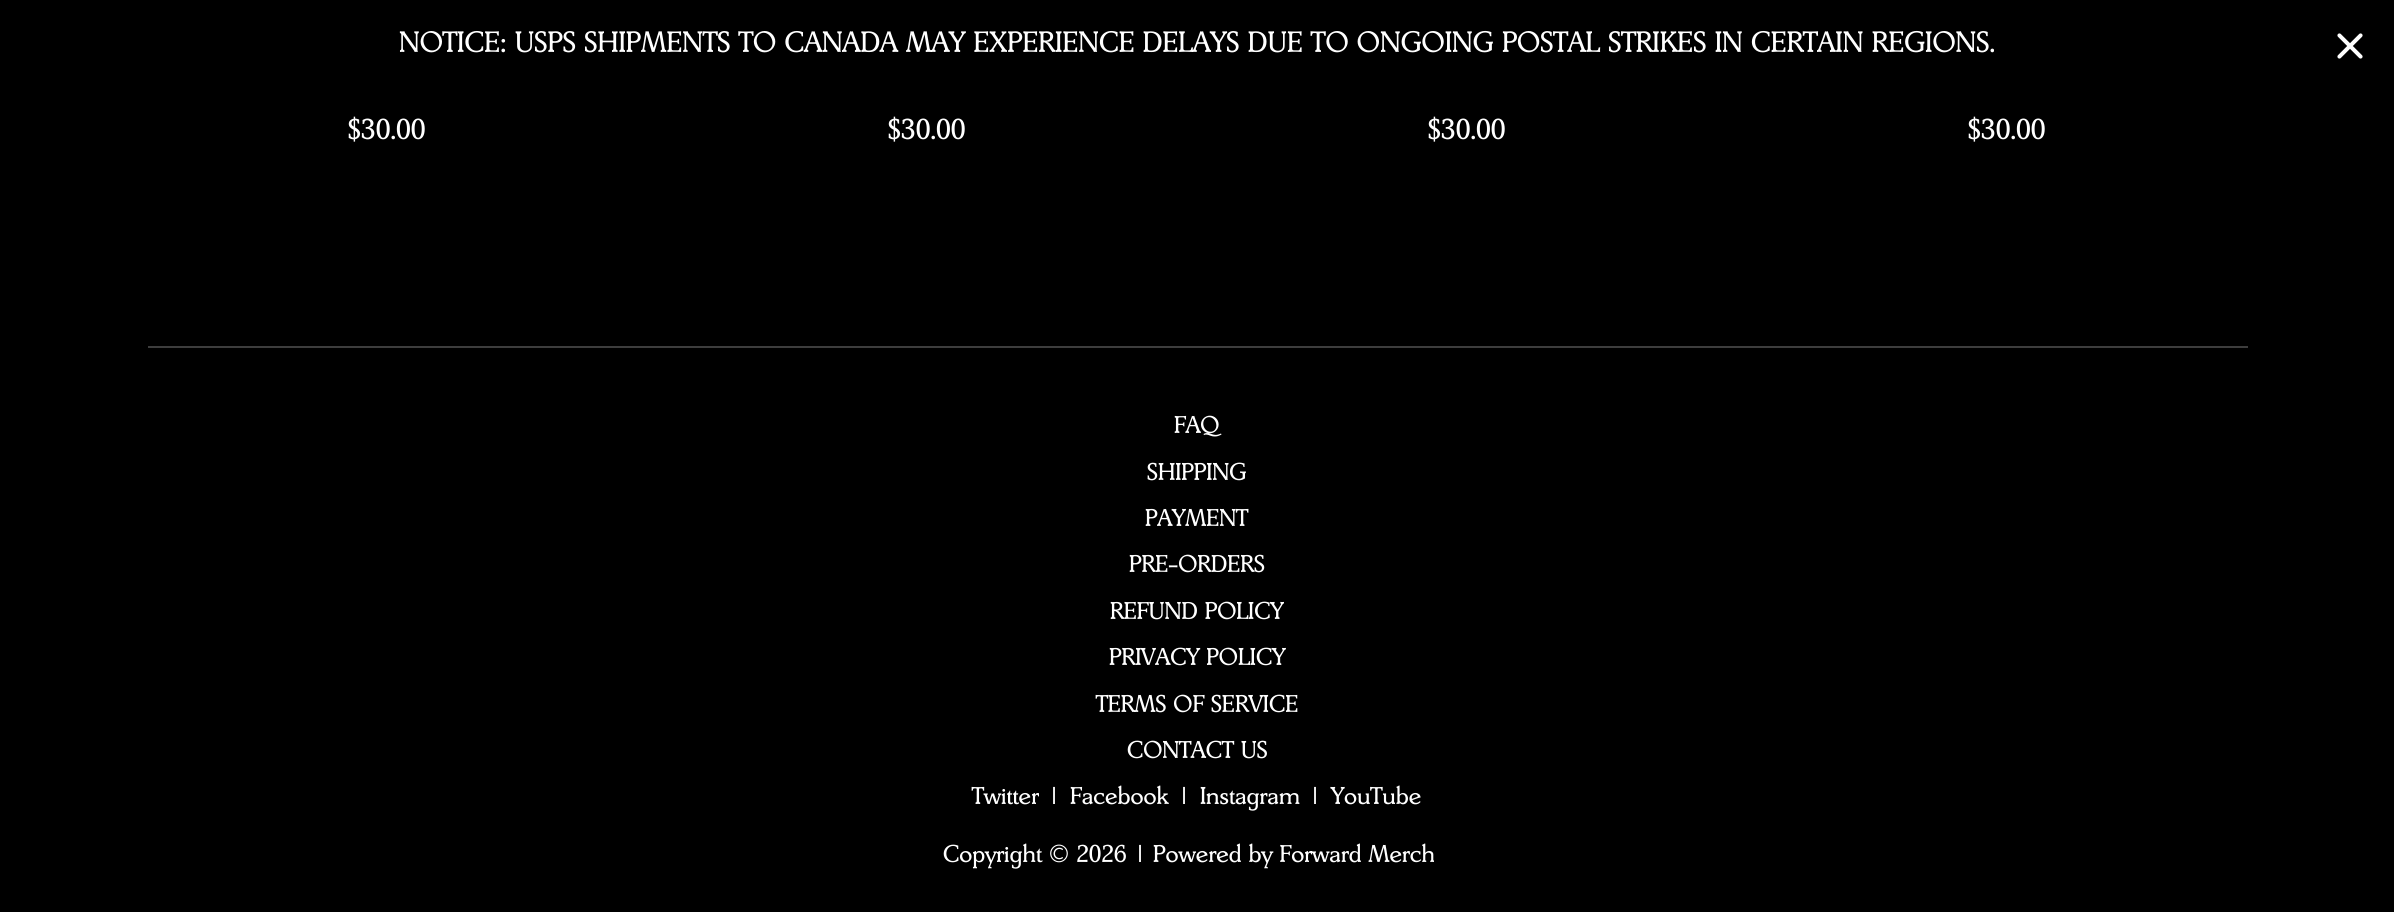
#include <cairo.h>
#include <math.h>
#include <stddef.h>

static cairo_t *ctx;

static void use_color(int r, int g, int b) {
    cairo_set_source_rgb(ctx, r / 255.0, g / 255.0, b / 255.0);
}

static void picture(const char *path, double x, double y, double w, double h) {
    cairo_surface_t *image = cairo_image_surface_create_from_png(path);
    cairo_save(ctx);
    cairo_set_source_surface(ctx, image, x, y);
    cairo_rectangle(ctx, x, y, w, h);
    cairo_fill(ctx);
    cairo_restore(ctx);
    cairo_surface_destroy(image);
}

int main(void) {
    cairo_surface_t *surface = cairo_image_surface_create(CAIRO_FORMAT_RGB24, 2394, 912);
    ctx = cairo_create(surface);
    cairo_font_options_t *options = cairo_font_options_create();
    cairo_font_options_set_hint_metrics(options, CAIRO_HINT_METRICS_OFF);
    cairo_font_options_set_hint_style(options, CAIRO_HINT_STYLE_NONE);
    cairo_set_font_options(ctx, options);
    cairo_set_miter_limit(ctx, 4);
    use_color(0, 0, 0);
    cairo_paint(ctx);
    cairo_select_font_face(ctx, "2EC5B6", CAIRO_FONT_SLANT_NORMAL, CAIRO_FONT_WEIGHT_NORMAL);
    cairo_set_font_size(ctx, 28.8);
    use_color(255, 255, 255);
    cairo_move_to(ctx, 399, 52);
    cairo_show_text(ctx, "NOTICE: USPS SHIPMENTS TO CANADA MAY EXPERIENCE DELAYS DUE TO ONGOING POSTAL STRIKES IN CERTAIN REGIONS.");
    picture("img1.png", 2337, 33, 26, 26);
    cairo_set_font_size(ctx, 28);
    cairo_move_to(ctx, 348, 139);
    cairo_show_text(ctx, "$30.00");
    cairo_move_to(ctx, 888, 139);
    cairo_show_text(ctx, "$30.00");
    cairo_move_to(ctx, 1428, 139);
    cairo_show_text(ctx, "$30.00");
    cairo_move_to(ctx, 1968, 139);
    cairo_show_text(ctx, "$30.00");
    use_color(61, 61, 61);
    cairo_rectangle(ctx, 148, 346, 2100, 2);
    cairo_fill(ctx);
    cairo_set_font_size(ctx, 23.75);
    use_color(255, 255, 255);
    cairo_move_to(ctx, 1174, 433);
    cairo_show_text(ctx, "FAQ");
    cairo_move_to(ctx, 1147, 480);
    cairo_show_text(ctx, "SHIPPING");
    cairo_move_to(ctx, 1145, 526);
    cairo_show_text(ctx, "PAYMENT");
    cairo_move_to(ctx, 1129, 572);
    cairo_show_text(ctx, "PRE-ORDERS");
    cairo_move_to(ctx, 1110, 619);
    cairo_show_text(ctx, "REFUND POLICY");
    cairo_move_to(ctx, 1109, 665);
    cairo_show_text(ctx, "PRIVACY POLICY");
    cairo_move_to(ctx, 1096, 712);
    cairo_show_text(ctx, "TERMS OF SERVICE");
    cairo_move_to(ctx, 1127, 758);
    cairo_show_text(ctx, "CONTACT US");
    cairo_move_to(ctx, 972, 804);
    cairo_show_text(ctx, "Twitter");
    cairo_move_to(ctx, 1052, 804);
    cairo_show_text(ctx, "|");
    cairo_move_to(ctx, 1070, 804);
    cairo_show_text(ctx, "Facebook");
    cairo_move_to(ctx, 1182, 804);
    cairo_show_text(ctx, "|");
    cairo_move_to(ctx, 1200, 804);
    cairo_show_text(ctx, "Instagram");
    cairo_move_to(ctx, 1313, 804);
    cairo_show_text(ctx, "|");
    cairo_move_to(ctx, 1331, 804);
    cairo_show_text(ctx, "YouTube");
    cairo_move_to(ctx, 943, 862);
    cairo_show_text(ctx, "Copyright © 2026");
    cairo_move_to(ctx, 1138, 862);
    cairo_show_text(ctx, "|");
    cairo_move_to(ctx, 1153, 862);
    cairo_show_text(ctx, "Powered by Forward Merch");
    cairo_surface_write_to_png(surface, "result.png");
    cairo_font_options_destroy(options);
    cairo_destroy(ctx);
    cairo_surface_destroy(surface);
    return 0;
}
